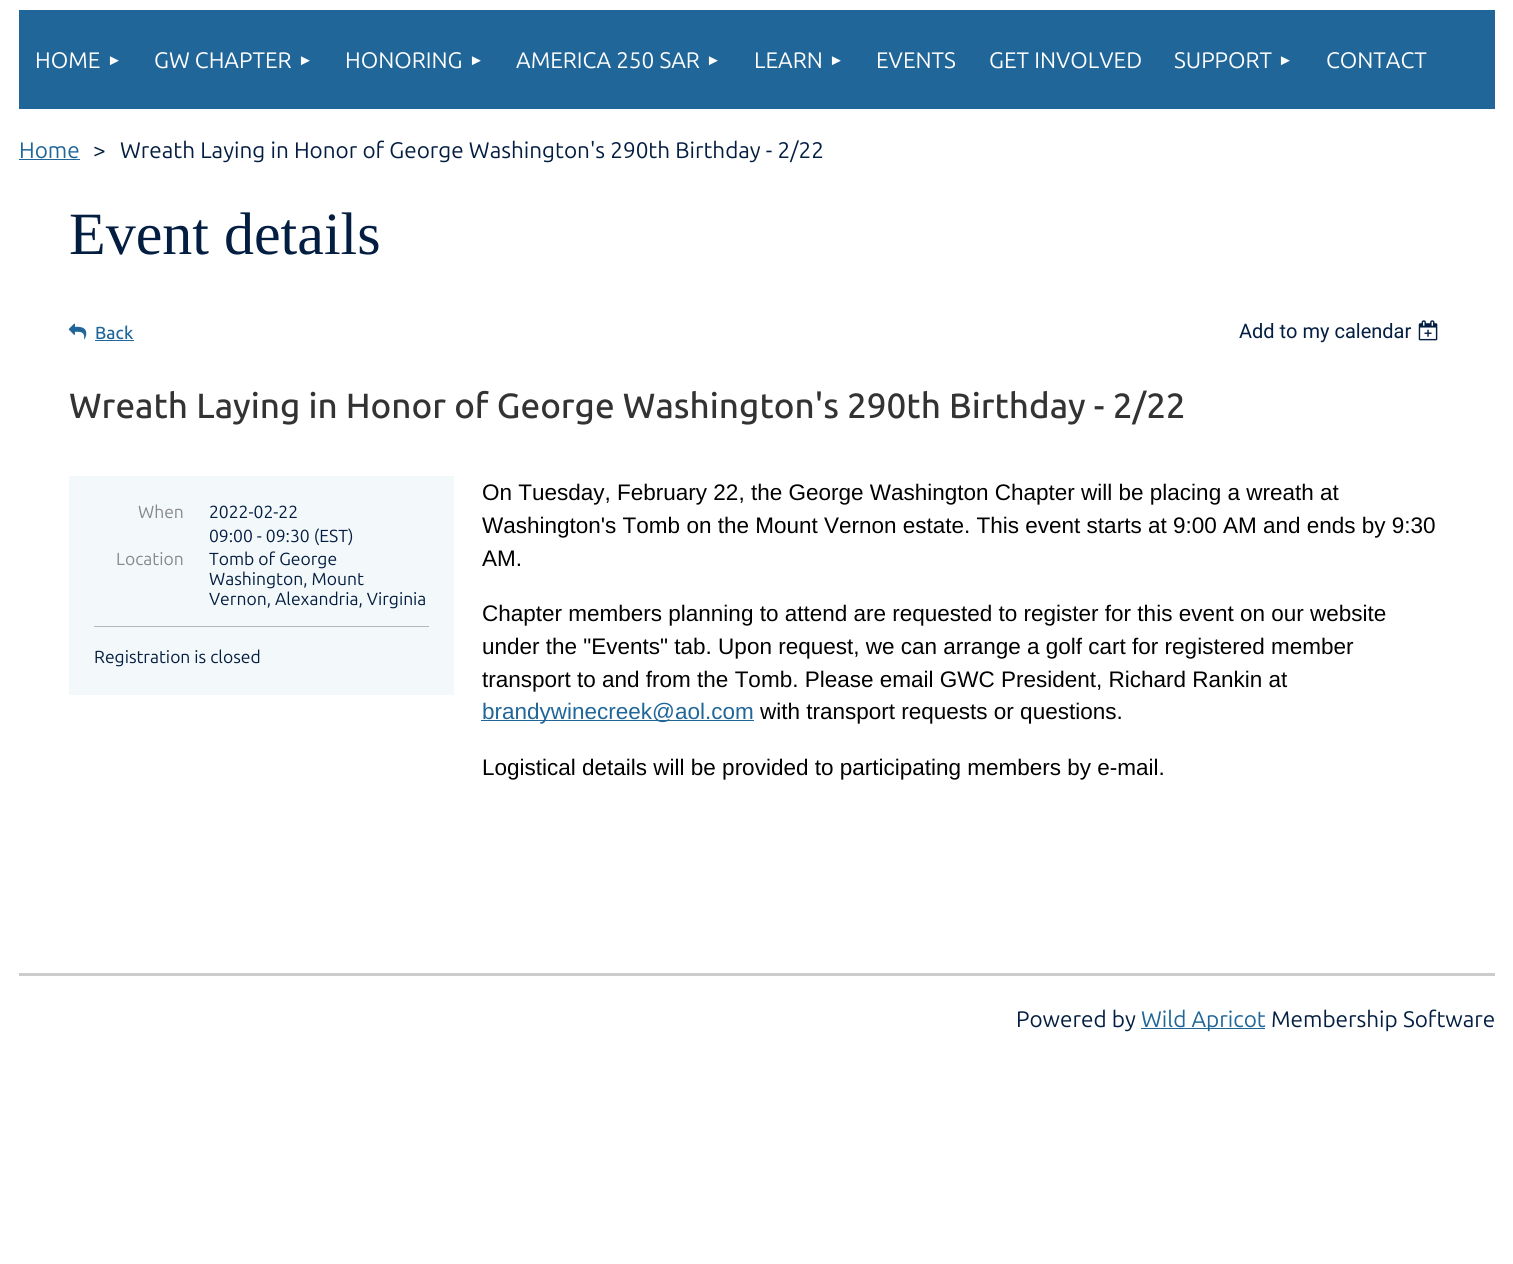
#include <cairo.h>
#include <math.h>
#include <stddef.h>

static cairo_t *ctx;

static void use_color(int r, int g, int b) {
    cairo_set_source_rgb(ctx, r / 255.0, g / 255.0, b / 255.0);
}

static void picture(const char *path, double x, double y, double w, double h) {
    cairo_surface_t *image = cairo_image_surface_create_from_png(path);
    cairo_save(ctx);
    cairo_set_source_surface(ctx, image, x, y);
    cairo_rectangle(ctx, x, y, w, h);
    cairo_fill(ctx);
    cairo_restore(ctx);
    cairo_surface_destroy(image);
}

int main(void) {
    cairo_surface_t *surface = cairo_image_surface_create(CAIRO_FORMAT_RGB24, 1513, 1264);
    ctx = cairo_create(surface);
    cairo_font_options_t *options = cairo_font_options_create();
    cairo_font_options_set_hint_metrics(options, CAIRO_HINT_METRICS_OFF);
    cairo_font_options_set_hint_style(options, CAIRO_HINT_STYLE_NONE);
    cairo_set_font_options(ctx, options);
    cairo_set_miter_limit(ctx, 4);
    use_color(255, 255, 255);
    cairo_paint(ctx);
    use_color(32, 102, 153);
    cairo_rectangle(ctx, 19, 10, 1476, 99);
    cairo_fill(ctx);
    cairo_select_font_face(ctx, "Ubuntu", CAIRO_FONT_SLANT_NORMAL, CAIRO_FONT_WEIGHT_NORMAL);
    cairo_set_font_size(ctx, 22.5);
    use_color(255, 255, 255);
    cairo_move_to(ctx, 35, 68);
    cairo_show_text(ctx, "HOME");
    cairo_select_font_face(ctx, "Liberation Sans", CAIRO_FONT_SLANT_NORMAL, CAIRO_FONT_WEIGHT_NORMAL);
    cairo_set_font_size(ctx, 15);
    cairo_move_to(ctx, 107, 65);
    cairo_show_text(ctx, "►");
    cairo_select_font_face(ctx, "Ubuntu", CAIRO_FONT_SLANT_NORMAL, CAIRO_FONT_WEIGHT_NORMAL);
    cairo_set_font_size(ctx, 22.5);
    cairo_move_to(ctx, 154, 68);
    cairo_show_text(ctx, "GW CHAPTER");
    cairo_select_font_face(ctx, "Liberation Sans", CAIRO_FONT_SLANT_NORMAL, CAIRO_FONT_WEIGHT_NORMAL);
    cairo_set_font_size(ctx, 15);
    cairo_move_to(ctx, 298, 65);
    cairo_show_text(ctx, "►");
    cairo_select_font_face(ctx, "Ubuntu", CAIRO_FONT_SLANT_NORMAL, CAIRO_FONT_WEIGHT_NORMAL);
    cairo_set_font_size(ctx, 22.5);
    cairo_move_to(ctx, 345, 68);
    cairo_show_text(ctx, "HONORING");
    cairo_select_font_face(ctx, "Liberation Sans", CAIRO_FONT_SLANT_NORMAL, CAIRO_FONT_WEIGHT_NORMAL);
    cairo_set_font_size(ctx, 15);
    cairo_move_to(ctx, 469, 65);
    cairo_show_text(ctx, "►");
    cairo_select_font_face(ctx, "Ubuntu", CAIRO_FONT_SLANT_NORMAL, CAIRO_FONT_WEIGHT_NORMAL);
    cairo_set_font_size(ctx, 22.5);
    cairo_move_to(ctx, 516, 68);
    cairo_show_text(ctx, "AMERICA 250 SAR");
    cairo_select_font_face(ctx, "Liberation Sans", CAIRO_FONT_SLANT_NORMAL, CAIRO_FONT_WEIGHT_NORMAL);
    cairo_set_font_size(ctx, 15);
    cairo_move_to(ctx, 706, 65);
    cairo_show_text(ctx, "►");
    cairo_select_font_face(ctx, "Ubuntu", CAIRO_FONT_SLANT_NORMAL, CAIRO_FONT_WEIGHT_NORMAL);
    cairo_set_font_size(ctx, 22.5);
    cairo_move_to(ctx, 754, 68);
    cairo_show_text(ctx, "LEARN");
    cairo_select_font_face(ctx, "Liberation Sans", CAIRO_FONT_SLANT_NORMAL, CAIRO_FONT_WEIGHT_NORMAL);
    cairo_set_font_size(ctx, 15);
    cairo_move_to(ctx, 829, 65);
    cairo_show_text(ctx, "►");
    cairo_select_font_face(ctx, "Ubuntu", CAIRO_FONT_SLANT_NORMAL, CAIRO_FONT_WEIGHT_NORMAL);
    cairo_set_font_size(ctx, 22.5);
    cairo_move_to(ctx, 876, 68);
    cairo_show_text(ctx, "EVENTS");
    cairo_move_to(ctx, 989, 68);
    cairo_show_text(ctx, "GET INVOLVED");
    cairo_move_to(ctx, 1174, 68);
    cairo_show_text(ctx, "SUPPORT");
    cairo_select_font_face(ctx, "Liberation Sans", CAIRO_FONT_SLANT_NORMAL, CAIRO_FONT_WEIGHT_NORMAL);
    cairo_set_font_size(ctx, 15);
    cairo_move_to(ctx, 1278, 65);
    cairo_show_text(ctx, "►");
    cairo_select_font_face(ctx, "Ubuntu", CAIRO_FONT_SLANT_NORMAL, CAIRO_FONT_WEIGHT_NORMAL);
    cairo_set_font_size(ctx, 22.5);
    cairo_move_to(ctx, 1326, 68);
    cairo_show_text(ctx, "CONTACT");
    use_color(32, 102, 153);
    cairo_move_to(ctx, 19, 158);
    cairo_show_text(ctx, "Home");
    cairo_rectangle(ctx, 19, 159, 61, 1);
    cairo_fill(ctx);
    use_color(4, 30, 66);
    cairo_move_to(ctx, 93, 158);
    cairo_show_text(ctx, ">");
    cairo_move_to(ctx, 120, 158);
    cairo_show_text(ctx, "Wreath Laying in Honor of George Washington's 290th Birthday - 2/22");
    cairo_select_font_face(ctx, "Liberation Serif", CAIRO_FONT_SLANT_NORMAL, CAIRO_FONT_WEIGHT_NORMAL);
    cairo_set_font_size(ctx, 60);
    cairo_move_to(ctx, 69, 254);
    cairo_show_text(ctx, "Event details");
    picture("img1.png", 68, 323, 19, 17);
    cairo_select_font_face(ctx, "Ubuntu Medium", CAIRO_FONT_SLANT_NORMAL, CAIRO_FONT_WEIGHT_NORMAL);
    cairo_set_font_size(ctx, 17.5);
    use_color(32, 102, 153);
    cairo_move_to(ctx, 95, 339);
    cairo_show_text(ctx, "Back");
    cairo_rectangle(ctx, 95, 340, 39, 1);
    cairo_fill(ctx);
    cairo_select_font_face(ctx, "Roboto", CAIRO_FONT_SLANT_NORMAL, CAIRO_FONT_WEIGHT_NORMAL);
    cairo_set_font_size(ctx, 20);
    use_color(4, 30, 66);
    cairo_move_to(ctx, 1239, 338);
    cairo_show_text(ctx, "Add to my calendar");
    picture("img2.png", 1418, 320, 20, 21);
    cairo_select_font_face(ctx, "Ubuntu Medium", CAIRO_FONT_SLANT_NORMAL, CAIRO_FONT_WEIGHT_NORMAL);
    cairo_set_font_size(ctx, 35);
    use_color(51, 51, 51);
    cairo_move_to(ctx, 69, 418);
    cairo_show_text(ctx, "Wreath Laying in Honor of George Washington's 290th Birthday - 2/22");
    use_color(243, 248, 250);
    cairo_rectangle(ctx, 69, 476, 385, 219);
    cairo_fill(ctx);
    cairo_select_font_face(ctx, "Ubuntu", CAIRO_FONT_SLANT_NORMAL, CAIRO_FONT_WEIGHT_NORMAL);
    cairo_set_font_size(ctx, 17.5);
    use_color(137, 137, 137);
    cairo_move_to(ctx, 138, 518);
    cairo_show_text(ctx, "When");
    use_color(4, 30, 66);
    cairo_move_to(ctx, 209, 518);
    cairo_show_text(ctx, "2022-02-22");
    cairo_move_to(ctx, 209, 542);
    cairo_show_text(ctx, "09:00 - 09:30 (EST)");
    use_color(137, 137, 137);
    cairo_move_to(ctx, 116, 565);
    cairo_show_text(ctx, "Location");
    use_color(4, 30, 66);
    cairo_move_to(ctx, 209, 565);
    cairo_show_text(ctx, "Tomb of George");
    cairo_move_to(ctx, 209, 585);
    cairo_show_text(ctx, "Washington, Mount");
    cairo_move_to(ctx, 209, 605);
    cairo_show_text(ctx, "Vernon, Alexandria, Virginia");
    use_color(183, 183, 183);
    cairo_rectangle(ctx, 94, 626, 335, 1);
    cairo_fill(ctx);
    use_color(4, 30, 66);
    cairo_move_to(ctx, 94, 663);
    cairo_show_text(ctx, "Registration is closed");
    cairo_select_font_face(ctx, "Liberation Sans", CAIRO_FONT_SLANT_NORMAL, CAIRO_FONT_WEIGHT_NORMAL);
    cairo_set_font_size(ctx, 22.5);
    use_color(0, 0, 0);
    cairo_move_to(ctx, 482, 500);
    cairo_show_text(ctx, "On Tuesday, February 22, the George Washington Chapter will be placing a wreath at");
    cairo_move_to(ctx, 482, 533);
    cairo_show_text(ctx, "Washington's Tomb on the Mount Vernon estate. This event starts at 9:00 AM and ends by 9:30");
    cairo_move_to(ctx, 482, 566);
    cairo_show_text(ctx, "AM.");
    cairo_move_to(ctx, 482, 621);
    cairo_show_text(ctx, "Chapter members planning to attend are requested to register for this event on our website");
    cairo_move_to(ctx, 482, 654);
    cairo_show_text(ctx, "under the \"Events\" tab. Upon request, we can arrange a golf cart for registered member");
    cairo_move_to(ctx, 482, 687);
    cairo_show_text(ctx, "transport to and from the Tomb. Please email GWC President, Richard Rankin at");
    use_color(32, 102, 153);
    cairo_rectangle(ctx, 481, 720, 273, 1);
    cairo_fill(ctx);
    cairo_move_to(ctx, 482, 719);
    cairo_show_text(ctx, "brandywinecreek@aol.com");
    use_color(0, 0, 0);
    cairo_move_to(ctx, 760, 719);
    cairo_show_text(ctx, "with transport requests or questions.");
    cairo_move_to(ctx, 482, 775);
    cairo_show_text(ctx, "Logistical details will be provided to participating members by e-mail.");
    use_color(204, 204, 204);
    cairo_rectangle(ctx, 19, 973, 1476, 3);
    cairo_fill(ctx);
    cairo_select_font_face(ctx, "Ubuntu", CAIRO_FONT_SLANT_NORMAL, CAIRO_FONT_WEIGHT_NORMAL);
    use_color(4, 30, 66);
    cairo_move_to(ctx, 1016, 1027);
    cairo_show_text(ctx, "Powered by");
    use_color(32, 102, 153);
    cairo_rectangle(ctx, 1141, 1028, 124, 1);
    cairo_fill(ctx);
    cairo_move_to(ctx, 1141, 1027);
    cairo_show_text(ctx, "Wild Apricot");
    use_color(4, 30, 66);
    cairo_move_to(ctx, 1271, 1027);
    cairo_show_text(ctx, "Membership Software");
    cairo_surface_write_to_png(surface, "result.png");
    cairo_font_options_destroy(options);
    cairo_destroy(ctx);
    cairo_surface_destroy(surface);
    return 0;
}
